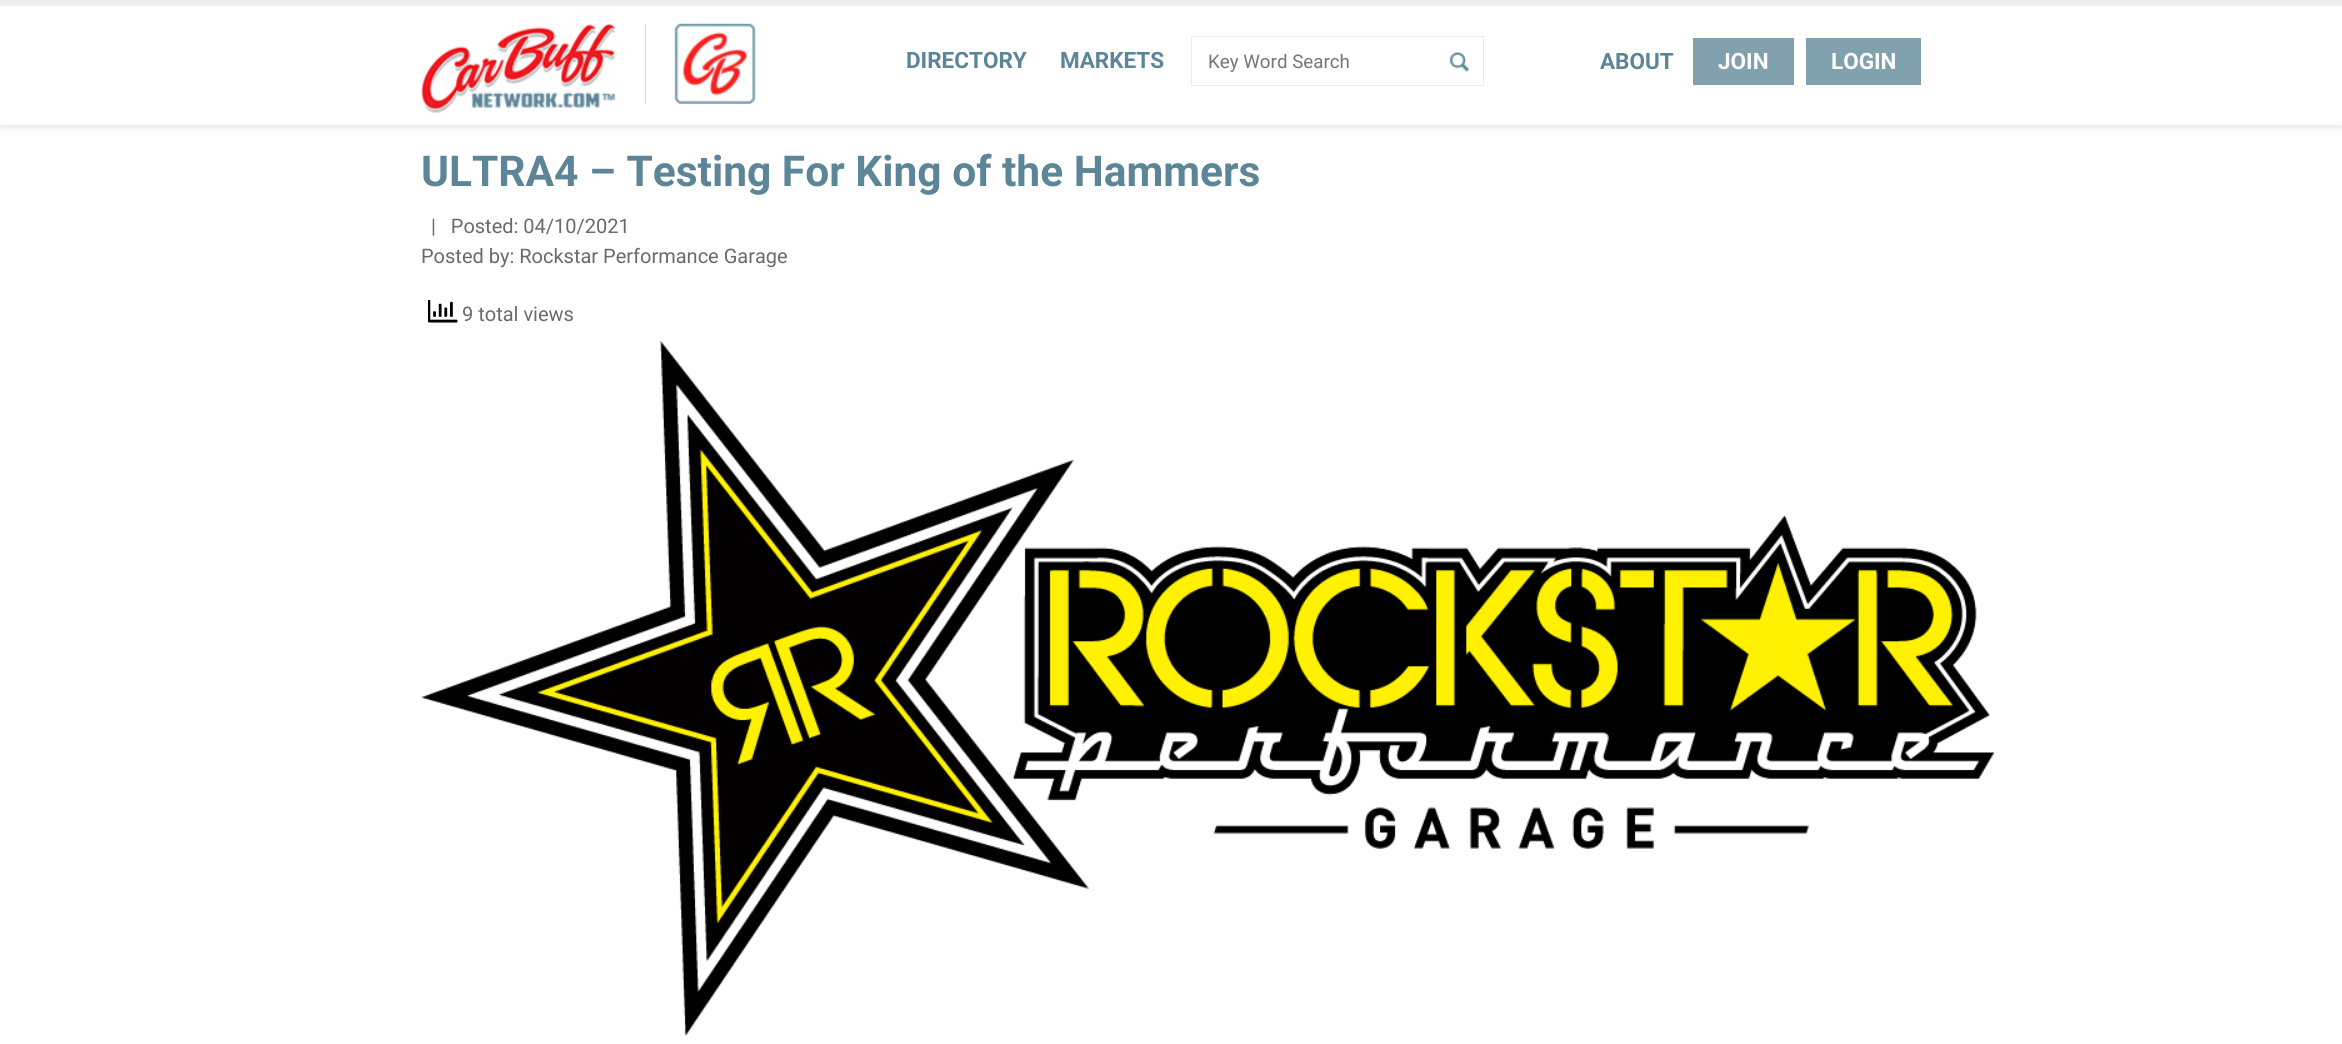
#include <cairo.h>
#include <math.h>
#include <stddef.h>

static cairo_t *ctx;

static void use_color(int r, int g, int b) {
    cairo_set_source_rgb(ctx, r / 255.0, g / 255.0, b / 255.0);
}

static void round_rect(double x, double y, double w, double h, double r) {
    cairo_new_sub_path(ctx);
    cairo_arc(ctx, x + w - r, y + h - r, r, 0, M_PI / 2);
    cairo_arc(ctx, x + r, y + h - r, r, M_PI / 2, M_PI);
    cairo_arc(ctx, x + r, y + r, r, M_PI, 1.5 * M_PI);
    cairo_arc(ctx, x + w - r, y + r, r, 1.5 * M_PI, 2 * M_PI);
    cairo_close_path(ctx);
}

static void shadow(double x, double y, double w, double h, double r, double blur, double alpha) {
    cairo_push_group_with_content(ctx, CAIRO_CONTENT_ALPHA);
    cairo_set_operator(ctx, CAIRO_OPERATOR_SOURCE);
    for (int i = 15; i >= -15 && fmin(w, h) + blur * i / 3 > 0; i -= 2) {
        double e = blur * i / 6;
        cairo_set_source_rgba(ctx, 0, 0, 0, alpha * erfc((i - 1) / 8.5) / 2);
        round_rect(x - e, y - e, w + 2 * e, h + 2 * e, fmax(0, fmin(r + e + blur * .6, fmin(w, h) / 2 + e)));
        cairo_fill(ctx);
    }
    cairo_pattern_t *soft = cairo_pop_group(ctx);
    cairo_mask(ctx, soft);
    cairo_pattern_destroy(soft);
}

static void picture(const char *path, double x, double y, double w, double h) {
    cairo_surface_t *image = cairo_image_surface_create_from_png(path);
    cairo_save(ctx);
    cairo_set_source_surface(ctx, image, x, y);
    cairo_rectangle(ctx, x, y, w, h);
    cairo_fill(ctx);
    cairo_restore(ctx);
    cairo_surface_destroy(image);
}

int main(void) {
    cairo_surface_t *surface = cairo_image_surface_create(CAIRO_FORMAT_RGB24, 2342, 1044);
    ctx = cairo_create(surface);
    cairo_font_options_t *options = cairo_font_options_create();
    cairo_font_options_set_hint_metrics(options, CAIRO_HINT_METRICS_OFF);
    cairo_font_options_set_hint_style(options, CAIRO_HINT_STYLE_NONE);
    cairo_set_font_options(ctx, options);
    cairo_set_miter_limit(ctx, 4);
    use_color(255, 255, 255);
    cairo_paint(ctx);
    use_color(0, 0, 0);
    shadow(0, 4, 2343, 125, 0, 2, 0.07);
    use_color(255, 255, 255);
    cairo_rectangle(ctx, 0, 6, 2342, 119);
    cairo_fill(ctx);
    use_color(238, 238, 238);
    cairo_rectangle(ctx, 0, 0, 2342, 6);
    cairo_fill(ctx);
    picture("img1.png", 421, 23, 195, 90);
    use_color(220, 220, 220);
    cairo_rectangle(ctx, 645, 24, 1, 80);
    cairo_fill(ctx);
    picture("img2.png", 674, 23, 82, 81);
    cairo_select_font_face(ctx, "Roboto", CAIRO_FONT_SLANT_NORMAL, CAIRO_FONT_WEIGHT_BOLD);
    cairo_set_font_size(ctx, 22.5);
    use_color(92, 133, 151);
    cairo_move_to(ctx, 906, 68);
    cairo_show_text(ctx, "DIRECTORY");
    cairo_move_to(ctx, 1060, 68);
    cairo_show_text(ctx, "MARKETS");
    cairo_rectangle(ctx, 1191.5, 36.5, 292, 49);
    use_color(235, 235, 235);
    cairo_set_line_width(ctx, 1);
    cairo_stroke(ctx);
    cairo_select_font_face(ctx, "Roboto", CAIRO_FONT_SLANT_NORMAL, CAIRO_FONT_WEIGHT_NORMAL);
    cairo_set_font_size(ctx, 18.75);
    use_color(117, 117, 117);
    cairo_move_to(ctx, 1208, 68);
    cairo_show_text(ctx, "Key Word Search");
    picture("img3.png", 1449, 52, 20, 20);
    cairo_select_font_face(ctx, "Roboto", CAIRO_FONT_SLANT_NORMAL, CAIRO_FONT_WEIGHT_BOLD);
    cairo_set_font_size(ctx, 22.5);
    use_color(92, 133, 151);
    cairo_move_to(ctx, 1600, 69);
    cairo_show_text(ctx, "ABOUT");
    use_color(129, 161, 175);
    cairo_rectangle(ctx, 1693, 38, 101, 47);
    cairo_fill(ctx);
    use_color(255, 255, 255);
    cairo_move_to(ctx, 1718, 69);
    cairo_show_text(ctx, "JOIN");
    use_color(129, 161, 175);
    cairo_rectangle(ctx, 1806, 38, 115, 47);
    cairo_fill(ctx);
    use_color(255, 255, 255);
    cairo_move_to(ctx, 1831, 69);
    cairo_show_text(ctx, "LOGIN");
    cairo_set_font_size(ctx, 42.5);
    use_color(92, 133, 151);
    cairo_move_to(ctx, 421, 186);
    cairo_show_text(ctx, "ULTRA4 – Testing For King of the Hammers");
    cairo_select_font_face(ctx, "Roboto", CAIRO_FONT_SLANT_NORMAL, CAIRO_FONT_WEIGHT_NORMAL);
    cairo_set_font_size(ctx, 20);
    use_color(106, 106, 106);
    cairo_move_to(ctx, 431, 233);
    cairo_show_text(ctx, "|   Posted: 04/10/2021");
    cairo_move_to(ctx, 421, 263);
    cairo_show_text(ctx, "Posted by: Rockstar Performance Garage");
    picture("img4.png", 428, 300, 30, 23);
    cairo_move_to(ctx, 462, 321);
    cairo_show_text(ctx, "9 total views");
    picture("img5.png", 421, 341, 1574, 695);
    cairo_surface_write_to_png(surface, "result.png");
    cairo_font_options_destroy(options);
    cairo_destroy(ctx);
    cairo_surface_destroy(surface);
    return 0;
}
